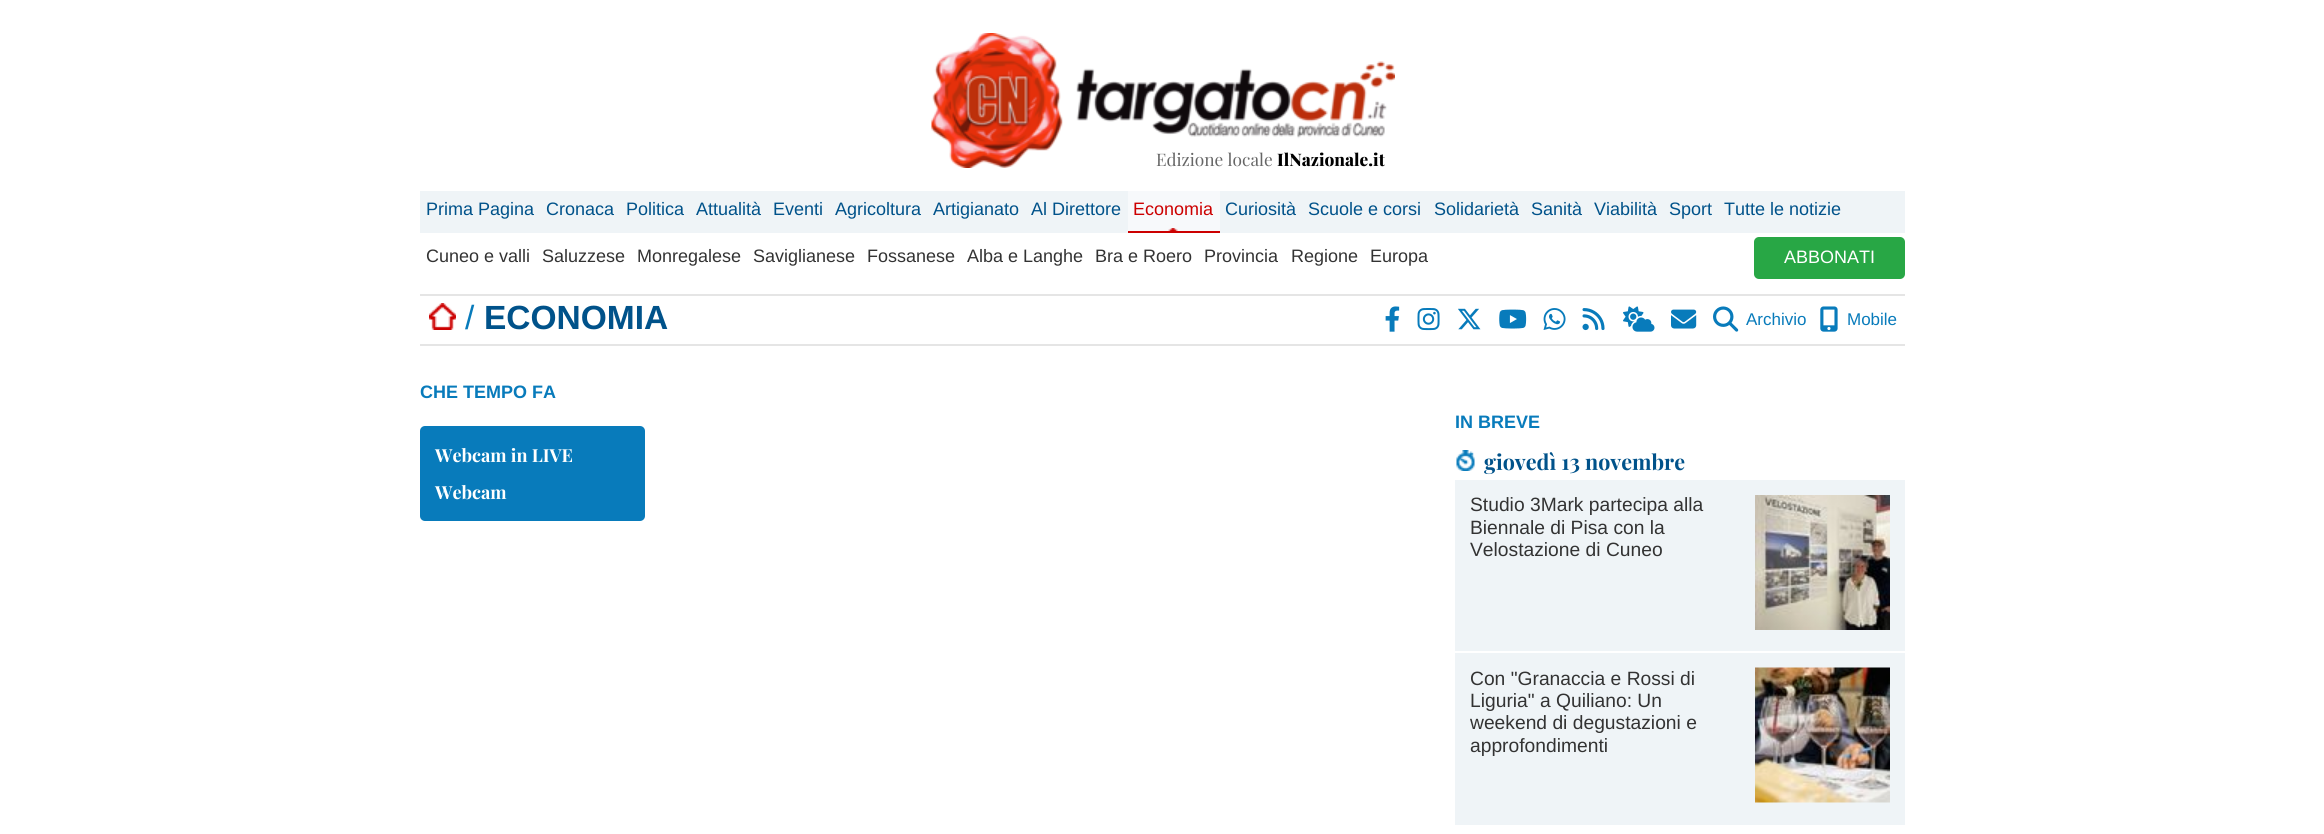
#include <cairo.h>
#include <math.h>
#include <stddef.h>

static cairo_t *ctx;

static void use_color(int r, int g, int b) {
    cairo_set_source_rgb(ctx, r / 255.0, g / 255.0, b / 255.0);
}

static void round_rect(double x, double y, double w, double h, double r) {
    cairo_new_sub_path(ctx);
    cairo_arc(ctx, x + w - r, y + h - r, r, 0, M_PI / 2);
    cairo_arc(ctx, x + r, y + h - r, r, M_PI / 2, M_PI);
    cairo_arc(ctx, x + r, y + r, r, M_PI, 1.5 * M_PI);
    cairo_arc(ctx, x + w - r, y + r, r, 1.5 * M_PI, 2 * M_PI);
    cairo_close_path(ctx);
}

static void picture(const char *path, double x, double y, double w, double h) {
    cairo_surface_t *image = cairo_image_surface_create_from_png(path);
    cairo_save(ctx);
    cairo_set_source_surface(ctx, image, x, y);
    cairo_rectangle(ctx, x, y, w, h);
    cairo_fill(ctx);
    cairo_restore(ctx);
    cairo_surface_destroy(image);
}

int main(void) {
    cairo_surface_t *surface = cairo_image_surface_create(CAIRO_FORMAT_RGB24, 2324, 834);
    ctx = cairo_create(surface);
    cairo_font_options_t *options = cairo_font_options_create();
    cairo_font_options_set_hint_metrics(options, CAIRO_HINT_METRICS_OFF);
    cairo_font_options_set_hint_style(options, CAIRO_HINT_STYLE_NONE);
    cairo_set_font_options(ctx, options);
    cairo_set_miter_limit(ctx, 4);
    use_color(255, 255, 255);
    cairo_paint(ctx);
    picture("img1.png", 931, 33, 464, 135);
    cairo_select_font_face(ctx, "Playfair Display", CAIRO_FONT_SLANT_NORMAL, CAIRO_FONT_WEIGHT_NORMAL);
    cairo_set_font_size(ctx, 17.25);
    use_color(102, 102, 102);
    cairo_move_to(ctx, 1156, 166);
    cairo_show_text(ctx, "Edizione locale");
    cairo_select_font_face(ctx, "Playfair Display ExtraBold", CAIRO_FONT_SLANT_NORMAL, CAIRO_FONT_WEIGHT_NORMAL);
    use_color(0, 0, 0);
    cairo_move_to(ctx, 1277, 166);
    cairo_show_text(ctx, "IlNazionale.it");
    use_color(239, 244, 247);
    cairo_rectangle(ctx, 420, 191, 1485, 42);
    cairo_fill(ctx);
    cairo_select_font_face(ctx, "Liberation Sans", CAIRO_FONT_SLANT_NORMAL, CAIRO_FONT_WEIGHT_NORMAL);
    cairo_set_font_size(ctx, 18);
    use_color(0, 82, 138);
    cairo_move_to(ctx, 426, 215);
    cairo_show_text(ctx, "Prima Pagina");
    cairo_move_to(ctx, 546, 215);
    cairo_show_text(ctx, "Cronaca");
    cairo_move_to(ctx, 626, 215);
    cairo_show_text(ctx, "Politica");
    cairo_move_to(ctx, 696, 215);
    cairo_show_text(ctx, "Attualità");
    cairo_move_to(ctx, 773, 215);
    cairo_show_text(ctx, "Eventi");
    cairo_move_to(ctx, 835, 215);
    cairo_show_text(ctx, "Agricoltura");
    cairo_move_to(ctx, 933, 215);
    cairo_show_text(ctx, "Artigianato");
    cairo_move_to(ctx, 1031, 215);
    cairo_show_text(ctx, "Al Direttore");
    use_color(247, 249, 251);
    cairo_rectangle(ctx, 1128, 191, 92, 40);
    cairo_fill(ctx);
    picture("img2.png", 1168, 228, 10, 3);
    use_color(204, 0, 0);
    cairo_rectangle(ctx, 1128, 231, 92, 2);
    cairo_fill(ctx);
    cairo_move_to(ctx, 1133, 215);
    cairo_show_text(ctx, "Economia");
    use_color(0, 82, 138);
    cairo_move_to(ctx, 1225, 215);
    cairo_show_text(ctx, "Curiosità");
    cairo_move_to(ctx, 1308, 215);
    cairo_show_text(ctx, "Scuole e corsi");
    cairo_move_to(ctx, 1434, 215);
    cairo_show_text(ctx, "Solidarietà");
    cairo_move_to(ctx, 1531, 215);
    cairo_show_text(ctx, "Sanità");
    cairo_move_to(ctx, 1594, 215);
    cairo_show_text(ctx, "Viabilità");
    cairo_move_to(ctx, 1669, 215);
    cairo_show_text(ctx, "Sport");
    cairo_move_to(ctx, 1724, 215);
    cairo_show_text(ctx, "Tutte le notizie");
    use_color(51, 51, 51);
    cairo_move_to(ctx, 426, 262);
    cairo_show_text(ctx, "Cuneo e valli");
    cairo_move_to(ctx, 542, 262);
    cairo_show_text(ctx, "Saluzzese");
    cairo_move_to(ctx, 637, 262);
    cairo_show_text(ctx, "Monregalese");
    cairo_move_to(ctx, 753, 262);
    cairo_show_text(ctx, "Saviglianese");
    cairo_move_to(ctx, 867, 262);
    cairo_show_text(ctx, "Fossanese");
    cairo_move_to(ctx, 967, 262);
    cairo_show_text(ctx, "Alba e Langhe");
    cairo_move_to(ctx, 1095, 262);
    cairo_show_text(ctx, "Bra e Roero");
    cairo_move_to(ctx, 1204, 262);
    cairo_show_text(ctx, "Provincia");
    cairo_move_to(ctx, 1291, 262);
    cairo_show_text(ctx, "Regione");
    cairo_move_to(ctx, 1370, 262);
    cairo_show_text(ctx, "Europa");
    use_color(40, 167, 69);
    round_rect(1754, 237, 151, 42, 5);
    cairo_fill(ctx);
    use_color(255, 255, 255);
    cairo_move_to(ctx, 1784, 263);
    cairo_show_text(ctx, "ABBONATI");
    use_color(229, 229, 229);
    cairo_rectangle(ctx, 420, 294, 1485, 2);
    cairo_fill(ctx);
    cairo_rectangle(ctx, 420, 344, 1485, 2);
    cairo_fill(ctx);
    picture("img3.png", 429, 303, 27, 27);
    cairo_set_font_size(ctx, 33.5);
    use_color(8, 123, 187);
    cairo_move_to(ctx, 465, 329);
    cairo_show_text(ctx, "/");
    cairo_select_font_face(ctx, "Liberation Sans", CAIRO_FONT_SLANT_NORMAL, CAIRO_FONT_WEIGHT_BOLD);
    use_color(0, 82, 138);
    cairo_move_to(ctx, 484, 329);
    cairo_show_text(ctx, "ECONOMIA");
    picture("img4.png", 1385, 306, 15, 26);
    picture("img5.png", 1417, 308, 23, 23);
    picture("img6.png", 1458, 308, 23, 22);
    picture("img7.png", 1499, 309, 28, 20);
    picture("img8.png", 1543, 308, 23, 22);
    picture("img9.png", 1582, 308, 23, 23);
    picture("img10.png", 1623, 306, 32, 26);
    picture("img11.png", 1671, 309, 26, 20);
    picture("img12.png", 1713, 306, 26, 26);
    cairo_select_font_face(ctx, "Liberation Sans", CAIRO_FONT_SLANT_NORMAL, CAIRO_FONT_WEIGHT_NORMAL);
    cairo_set_font_size(ctx, 17);
    use_color(8, 123, 187);
    cairo_move_to(ctx, 1746, 325);
    cairo_show_text(ctx, "Archivio");
    picture("img13.png", 1820, 306, 18, 26);
    cairo_move_to(ctx, 1847, 325);
    cairo_show_text(ctx, "Mobile");
    cairo_select_font_face(ctx, "Liberation Sans", CAIRO_FONT_SLANT_NORMAL, CAIRO_FONT_WEIGHT_BOLD);
    cairo_set_font_size(ctx, 18);
    cairo_move_to(ctx, 420, 398);
    cairo_show_text(ctx, "CHE TEMPO FA");
    round_rect(420, 426, 225, 95, 5);
    cairo_fill(ctx);
    cairo_select_font_face(ctx, "Playfair Display", CAIRO_FONT_SLANT_NORMAL, CAIRO_FONT_WEIGHT_BOLD);
    use_color(255, 255, 255);
    cairo_move_to(ctx, 435, 462);
    cairo_show_text(ctx, "Webcam in LIVE");
    cairo_move_to(ctx, 435, 499);
    cairo_show_text(ctx, "Webcam");
    cairo_select_font_face(ctx, "Liberation Sans", CAIRO_FONT_SLANT_NORMAL, CAIRO_FONT_WEIGHT_BOLD);
    use_color(8, 123, 187);
    cairo_move_to(ctx, 1455, 428);
    cairo_show_text(ctx, "IN BREVE");
    picture("img14.png", 1456, 450, 19, 21);
    cairo_select_font_face(ctx, "Playfair Display", CAIRO_FONT_SLANT_NORMAL, CAIRO_FONT_WEIGHT_BOLD);
    cairo_set_font_size(ctx, 21.5);
    use_color(0, 82, 138);
    cairo_move_to(ctx, 1484, 470);
    cairo_show_text(ctx, "giovedì 13 novembre");
    use_color(239, 244, 247);
    cairo_rectangle(ctx, 1455, 480, 450, 171);
    cairo_fill(ctx);
    cairo_select_font_face(ctx, "Liberation Sans", CAIRO_FONT_SLANT_NORMAL, CAIRO_FONT_WEIGHT_NORMAL);
    cairo_set_font_size(ctx, 19.25);
    use_color(51, 51, 51);
    cairo_move_to(ctx, 1470, 511);
    cairo_show_text(ctx, "Studio 3Mark partecipa alla");
    cairo_move_to(ctx, 1470, 534);
    cairo_show_text(ctx, "Biennale di Pisa con la");
    cairo_move_to(ctx, 1470, 556);
    cairo_show_text(ctx, "Velostazione di Cuneo");
    picture("img15.png", 1755, 495, 135, 135);
    use_color(239, 244, 247);
    cairo_rectangle(ctx, 1455, 653, 450, 172);
    cairo_fill(ctx);
    use_color(51, 51, 51);
    cairo_move_to(ctx, 1470, 685);
    cairo_show_text(ctx, "Con \"Granaccia e Rossi di");
    cairo_move_to(ctx, 1470, 707);
    cairo_show_text(ctx, "Liguria\" a Quiliano: Un");
    cairo_move_to(ctx, 1470, 729);
    cairo_show_text(ctx, "weekend di degustazioni e");
    cairo_move_to(ctx, 1470, 752);
    cairo_show_text(ctx, "approfondimenti");
    picture("img16.png", 1755, 667, 135, 136);
    cairo_surface_write_to_png(surface, "result.png");
    cairo_font_options_destroy(options);
    cairo_destroy(ctx);
    cairo_surface_destroy(surface);
    return 0;
}
